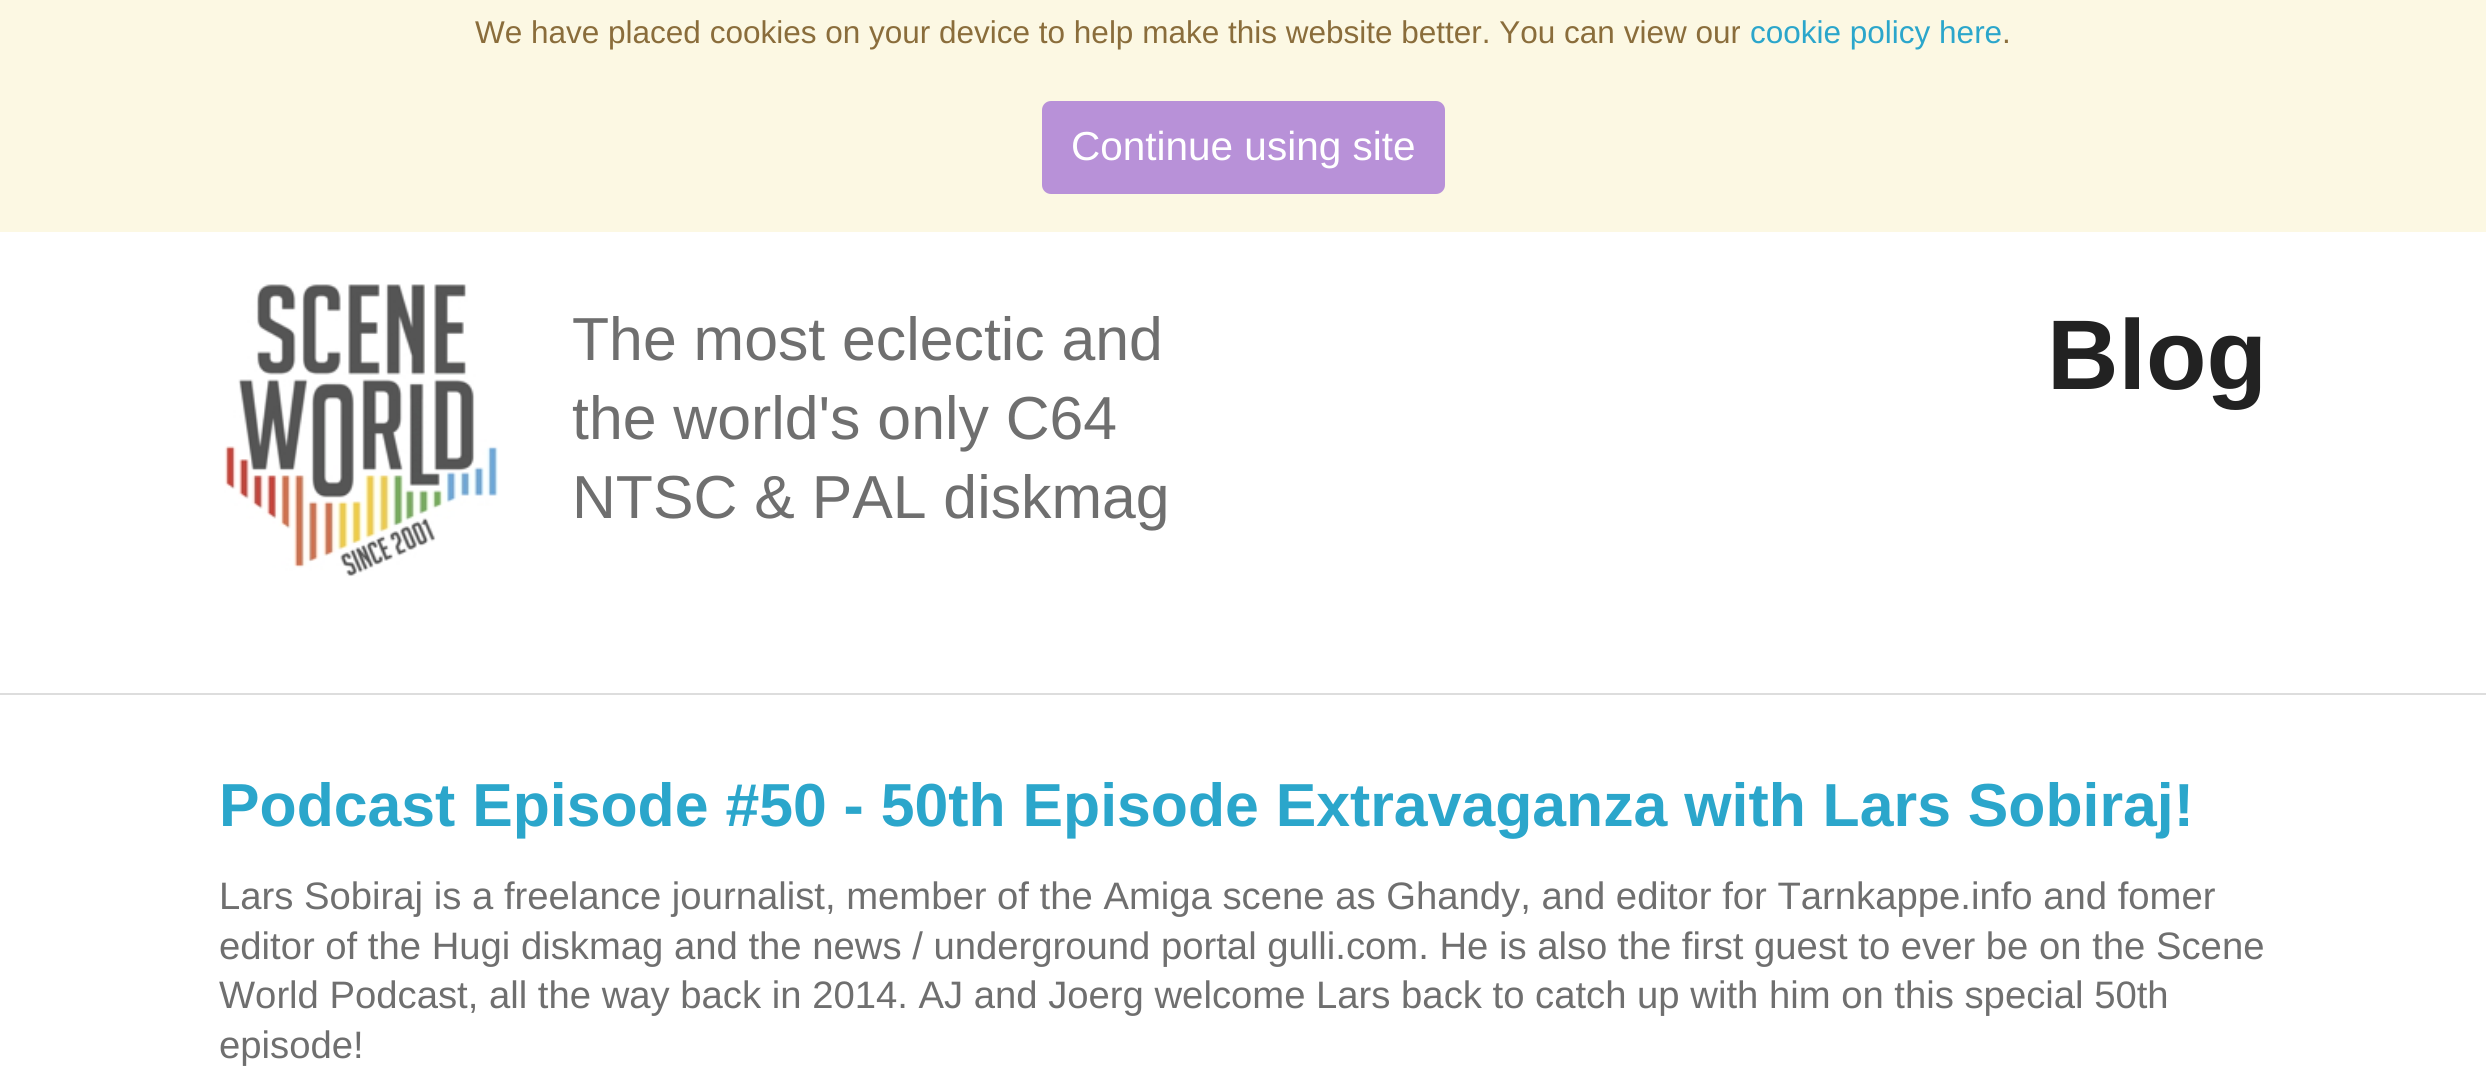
#include <cairo.h>
#include <math.h>
#include <stddef.h>

static cairo_t *ctx;

static void use_color(int r, int g, int b) {
    cairo_set_source_rgb(ctx, r / 255.0, g / 255.0, b / 255.0);
}

static void round_rect(double x, double y, double w, double h, double r) {
    cairo_new_sub_path(ctx);
    cairo_arc(ctx, x + w - r, y + h - r, r, 0, M_PI / 2);
    cairo_arc(ctx, x + r, y + h - r, r, M_PI / 2, M_PI);
    cairo_arc(ctx, x + r, y + r, r, M_PI, 1.5 * M_PI);
    cairo_arc(ctx, x + w - r, y + r, r, 1.5 * M_PI, 2 * M_PI);
    cairo_close_path(ctx);
}

static void picture(const char *path, double x, double y, double w, double h) {
    cairo_surface_t *image = cairo_image_surface_create_from_png(path);
    cairo_save(ctx);
    cairo_set_source_surface(ctx, image, x, y);
    cairo_rectangle(ctx, x, y, w, h);
    cairo_fill(ctx);
    cairo_restore(ctx);
    cairo_surface_destroy(image);
}

int main(void) {
    cairo_surface_t *surface = cairo_image_surface_create(CAIRO_FORMAT_RGB24, 2486, 1066);
    ctx = cairo_create(surface);
    cairo_font_options_t *options = cairo_font_options_create();
    cairo_font_options_set_hint_metrics(options, CAIRO_HINT_METRICS_OFF);
    cairo_font_options_set_hint_style(options, CAIRO_HINT_STYLE_NONE);
    cairo_set_font_options(ctx, options);
    cairo_set_miter_limit(ctx, 4);
    use_color(255, 255, 255);
    cairo_paint(ctx);
    use_color(252, 248, 227);
    cairo_rectangle(ctx, 0, 0, 2486, 232);
    cairo_fill(ctx);
    cairo_select_font_face(ctx, "Liberation Sans", CAIRO_FONT_SLANT_NORMAL, CAIRO_FONT_WEIGHT_NORMAL);
    cairo_set_font_size(ctx, 31.5);
    use_color(138, 109, 59);
    cairo_move_to(ctx, 475, 43);
    cairo_show_text(ctx, "We have placed cookies on your device to help make this website better. You can view our");
    use_color(43, 166, 203);
    cairo_move_to(ctx, 1750, 43);
    cairo_show_text(ctx, "cookie policy here");
    use_color(138, 109, 59);
    cairo_move_to(ctx, 2002, 43);
    cairo_show_text(ctx, ".");
    use_color(184, 145, 216);
    round_rect(1043, 102, 401, 91, 8);
    cairo_fill_preserve(ctx);
    cairo_stroke(ctx);
    cairo_set_font_size(ctx, 40.5);
    use_color(255, 255, 255);
    cairo_move_to(ctx, 1071, 160);
    cairo_show_text(ctx, "Continue using site");
    picture("img1.png", 224, 284, 274, 293);
    cairo_set_font_size(ctx, 60.75);
    use_color(111, 111, 111);
    cairo_move_to(ctx, 572, 360);
    cairo_show_text(ctx, "The most eclectic and");
    cairo_move_to(ctx, 572, 439);
    cairo_show_text(ctx, "the world's only C64");
    cairo_move_to(ctx, 572, 518);
    cairo_show_text(ctx, "NTSC & PAL diskmag");
    cairo_select_font_face(ctx, "Liberation Sans", CAIRO_FONT_SLANT_NORMAL, CAIRO_FONT_WEIGHT_BOLD);
    cairo_set_font_size(ctx, 99);
    use_color(34, 34, 34);
    cairo_move_to(ctx, 2047, 389);
    cairo_show_text(ctx, "Blog");
    use_color(221, 221, 221);
    cairo_rectangle(ctx, 0, 693, 2486, 2);
    cairo_fill(ctx);
    cairo_set_font_size(ctx, 60.75);
    use_color(43, 166, 203);
    cairo_move_to(ctx, 219, 826);
    cairo_show_text(ctx, "Podcast Episode #50 - 50th Episode Extravaganza with Lars Sobiraj!");
    cairo_select_font_face(ctx, "Liberation Sans", CAIRO_FONT_SLANT_NORMAL, CAIRO_FONT_WEIGHT_NORMAL);
    cairo_set_font_size(ctx, 38.25);
    use_color(111, 111, 111);
    cairo_move_to(ctx, 219, 909);
    cairo_show_text(ctx, "Lars Sobiraj is a freelance journalist, member of the Amiga scene as Ghandy, and editor for Tarnkappe.info and fomer");
    cairo_move_to(ctx, 219, 959);
    cairo_show_text(ctx, "editor of the Hugi diskmag and the news / underground portal gulli.com. He is also the first guest to ever be on the Scene");
    cairo_move_to(ctx, 219, 1008);
    cairo_show_text(ctx, "World Podcast, all the way back in 2014. AJ and Joerg welcome Lars back to catch up with him on this special 50th");
    cairo_move_to(ctx, 219, 1058);
    cairo_show_text(ctx, "episode!");
    cairo_surface_write_to_png(surface, "result.png");
    cairo_font_options_destroy(options);
    cairo_destroy(ctx);
    cairo_surface_destroy(surface);
    return 0;
}
